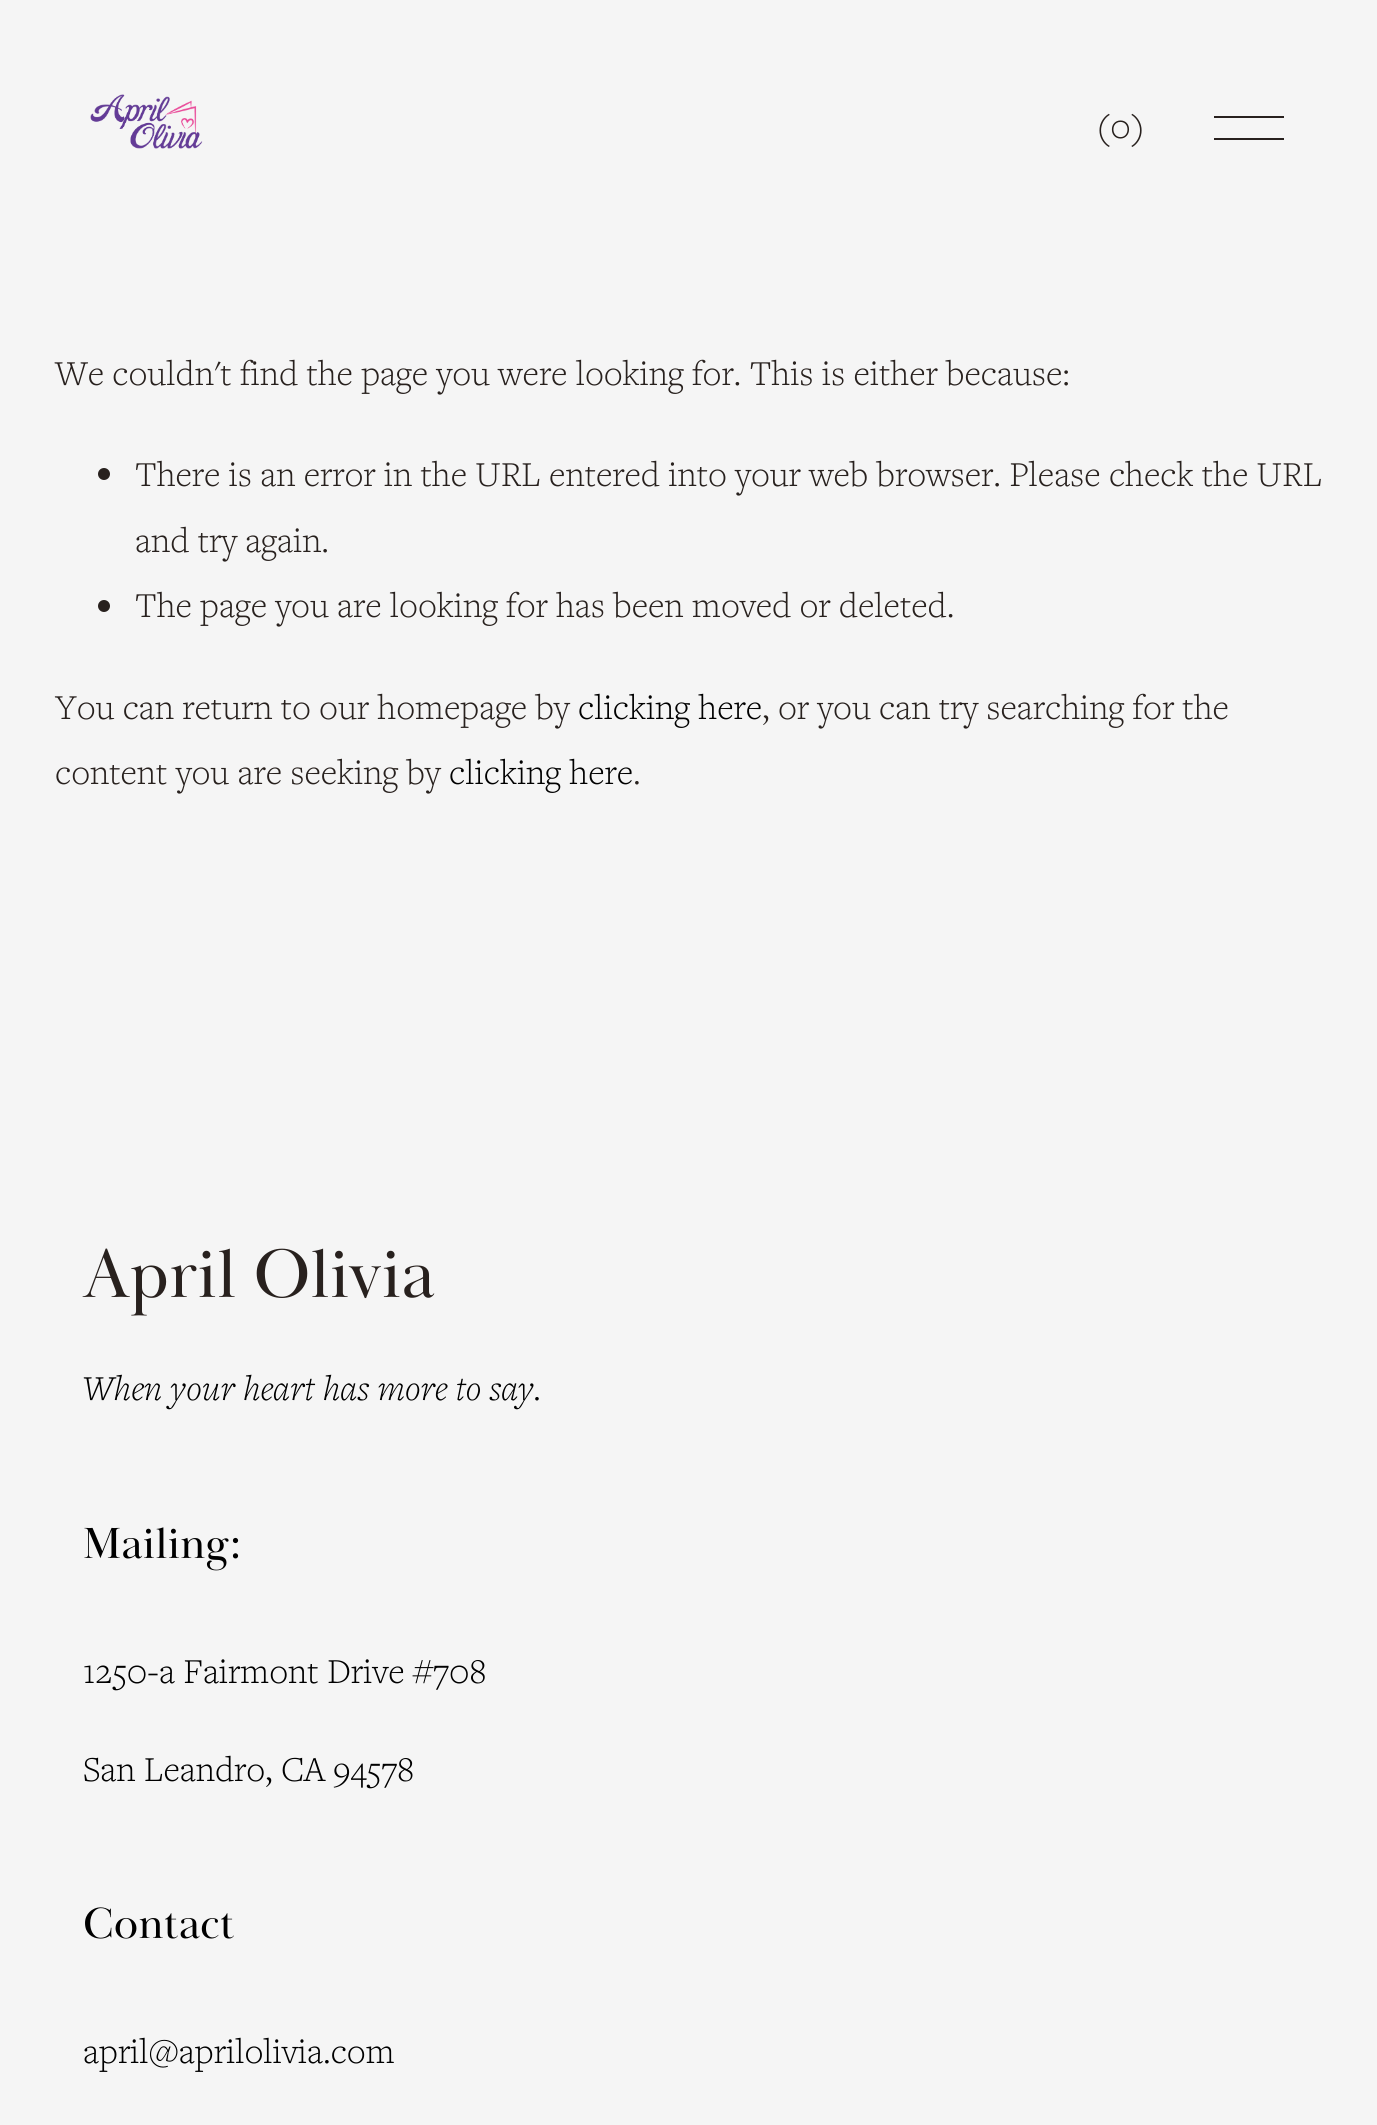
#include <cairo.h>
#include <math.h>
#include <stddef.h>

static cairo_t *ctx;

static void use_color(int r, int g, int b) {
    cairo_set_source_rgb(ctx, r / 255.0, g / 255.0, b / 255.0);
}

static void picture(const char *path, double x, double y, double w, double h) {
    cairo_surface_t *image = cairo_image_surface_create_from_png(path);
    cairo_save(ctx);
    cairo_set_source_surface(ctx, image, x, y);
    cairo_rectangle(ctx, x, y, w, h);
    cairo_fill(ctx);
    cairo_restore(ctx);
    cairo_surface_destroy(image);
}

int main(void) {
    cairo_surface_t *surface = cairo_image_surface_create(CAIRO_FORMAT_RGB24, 1377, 2125);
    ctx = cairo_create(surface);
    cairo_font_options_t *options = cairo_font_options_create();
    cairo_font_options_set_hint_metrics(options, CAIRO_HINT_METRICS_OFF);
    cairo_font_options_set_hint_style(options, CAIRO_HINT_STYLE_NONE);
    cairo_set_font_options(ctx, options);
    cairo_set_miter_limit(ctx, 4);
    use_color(245, 245, 245);
    cairo_paint(ctx);
    picture("img1.png", 90, 94, 113, 55);
    cairo_select_font_face(ctx, "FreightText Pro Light", CAIRO_FONT_SLANT_NORMAL, CAIRO_FONT_WEIGHT_NORMAL);
    cairo_set_font_size(ctx, 36.3);
    use_color(40, 33, 30);
    cairo_move_to(ctx, 1096, 138);
    cairo_show_text(ctx, "(0)");
    cairo_rectangle(ctx, 1214, 116, 70, 2);
    cairo_fill(ctx);
    cairo_rectangle(ctx, 1214, 138, 70, 2);
    cairo_fill(ctx);
    cairo_move_to(ctx, 55, 385);
    cairo_show_text(ctx, "We couldn't find the page you were looking for. This is either because:");
    cairo_new_path(ctx);
    cairo_arc(ctx, 104, 474, 6, 0, 2 * M_PI);
    cairo_fill(ctx);
    cairo_move_to(ctx, 135, 486);
    cairo_show_text(ctx, "There is an error in the URL entered into your web browser. Please check the URL");
    cairo_move_to(ctx, 135, 552);
    cairo_show_text(ctx, "and try again.");
    cairo_new_path(ctx);
    cairo_arc(ctx, 104, 606, 6, 0, 2 * M_PI);
    cairo_fill(ctx);
    cairo_move_to(ctx, 135, 617);
    cairo_show_text(ctx, "The page you are looking for has been moved or deleted.");
    cairo_move_to(ctx, 55, 719);
    cairo_show_text(ctx, "You can return to our homepage by");
    use_color(0, 0, 0);
    cairo_move_to(ctx, 578, 719);
    cairo_show_text(ctx, "clicking here");
    use_color(40, 33, 30);
    cairo_move_to(ctx, 762, 719);
    cairo_show_text(ctx, ", or you can try searching for the");
    cairo_move_to(ctx, 55, 784);
    cairo_show_text(ctx, "content you are seeking by");
    use_color(0, 0, 0);
    cairo_move_to(ctx, 449, 784);
    cairo_show_text(ctx, "clicking here");
    use_color(40, 33, 30);
    cairo_move_to(ctx, 633, 784);
    cairo_show_text(ctx, ".");
    cairo_select_font_face(ctx, "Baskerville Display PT", CAIRO_FONT_SLANT_NORMAL, CAIRO_FONT_WEIGHT_NORMAL);
    cairo_set_font_size(ctx, 71);
    cairo_move_to(ctx, 83, 1297);
    cairo_show_text(ctx, "April Olivia");
    cairo_select_font_face(ctx, "FreightText Pro Light", CAIRO_FONT_SLANT_ITALIC, CAIRO_FONT_WEIGHT_NORMAL);
    cairo_set_font_size(ctx, 36.3);
    use_color(0, 0, 0);
    cairo_move_to(ctx, 83, 1400);
    cairo_show_text(ctx, "When your heart has more to say.");
    cairo_select_font_face(ctx, "Baskerville Display PT", CAIRO_FONT_SLANT_NORMAL, CAIRO_FONT_WEIGHT_NORMAL);
    cairo_set_font_size(ctx, 45);
    cairo_move_to(ctx, 83, 1558);
    cairo_show_text(ctx, "Mailing:");
    cairo_select_font_face(ctx, "FreightText Pro Light", CAIRO_FONT_SLANT_NORMAL, CAIRO_FONT_WEIGHT_NORMAL);
    cairo_set_font_size(ctx, 36.3);
    cairo_move_to(ctx, 83, 1683);
    cairo_show_text(ctx, "1250-a Fairmont Drive #708");
    cairo_move_to(ctx, 83, 1781);
    cairo_show_text(ctx, "San Leandro, CA 94578");
    cairo_select_font_face(ctx, "Baskerville Display PT", CAIRO_FONT_SLANT_NORMAL, CAIRO_FONT_WEIGHT_NORMAL);
    cairo_set_font_size(ctx, 45);
    cairo_move_to(ctx, 83, 1938);
    cairo_show_text(ctx, "Contact");
    cairo_select_font_face(ctx, "FreightText Pro Light", CAIRO_FONT_SLANT_NORMAL, CAIRO_FONT_WEIGHT_NORMAL);
    cairo_set_font_size(ctx, 36.3);
    cairo_move_to(ctx, 83, 2063);
    cairo_show_text(ctx, "april@aprilolivia.com");
    cairo_surface_write_to_png(surface, "result.png");
    cairo_font_options_destroy(options);
    cairo_destroy(ctx);
    cairo_surface_destroy(surface);
    return 0;
}
